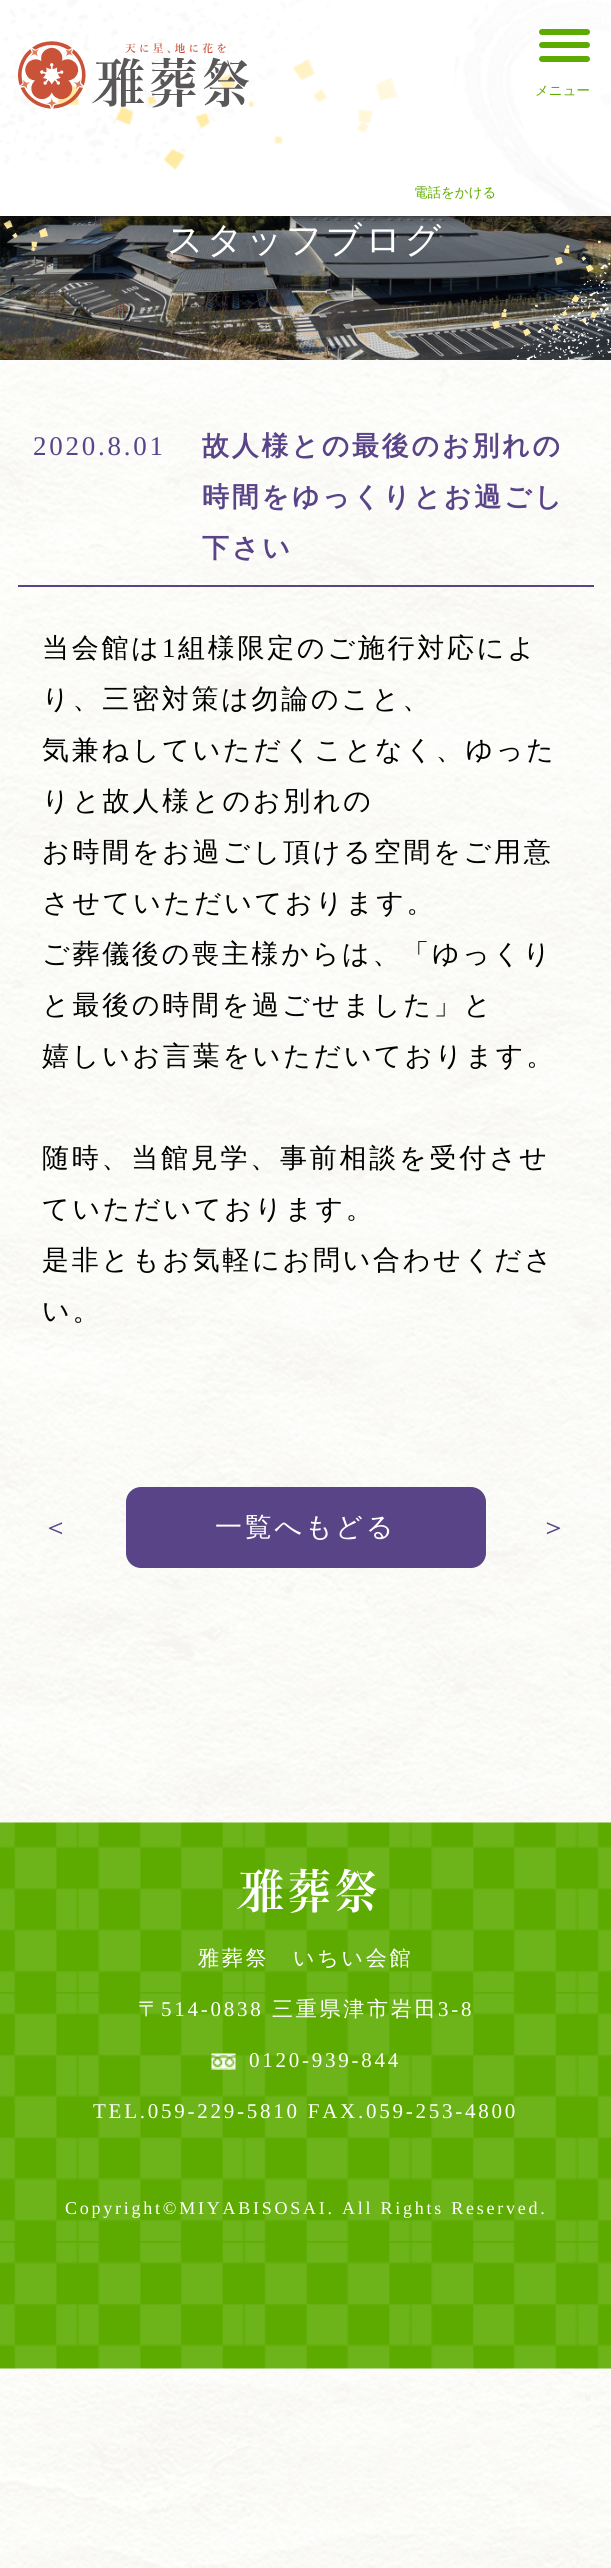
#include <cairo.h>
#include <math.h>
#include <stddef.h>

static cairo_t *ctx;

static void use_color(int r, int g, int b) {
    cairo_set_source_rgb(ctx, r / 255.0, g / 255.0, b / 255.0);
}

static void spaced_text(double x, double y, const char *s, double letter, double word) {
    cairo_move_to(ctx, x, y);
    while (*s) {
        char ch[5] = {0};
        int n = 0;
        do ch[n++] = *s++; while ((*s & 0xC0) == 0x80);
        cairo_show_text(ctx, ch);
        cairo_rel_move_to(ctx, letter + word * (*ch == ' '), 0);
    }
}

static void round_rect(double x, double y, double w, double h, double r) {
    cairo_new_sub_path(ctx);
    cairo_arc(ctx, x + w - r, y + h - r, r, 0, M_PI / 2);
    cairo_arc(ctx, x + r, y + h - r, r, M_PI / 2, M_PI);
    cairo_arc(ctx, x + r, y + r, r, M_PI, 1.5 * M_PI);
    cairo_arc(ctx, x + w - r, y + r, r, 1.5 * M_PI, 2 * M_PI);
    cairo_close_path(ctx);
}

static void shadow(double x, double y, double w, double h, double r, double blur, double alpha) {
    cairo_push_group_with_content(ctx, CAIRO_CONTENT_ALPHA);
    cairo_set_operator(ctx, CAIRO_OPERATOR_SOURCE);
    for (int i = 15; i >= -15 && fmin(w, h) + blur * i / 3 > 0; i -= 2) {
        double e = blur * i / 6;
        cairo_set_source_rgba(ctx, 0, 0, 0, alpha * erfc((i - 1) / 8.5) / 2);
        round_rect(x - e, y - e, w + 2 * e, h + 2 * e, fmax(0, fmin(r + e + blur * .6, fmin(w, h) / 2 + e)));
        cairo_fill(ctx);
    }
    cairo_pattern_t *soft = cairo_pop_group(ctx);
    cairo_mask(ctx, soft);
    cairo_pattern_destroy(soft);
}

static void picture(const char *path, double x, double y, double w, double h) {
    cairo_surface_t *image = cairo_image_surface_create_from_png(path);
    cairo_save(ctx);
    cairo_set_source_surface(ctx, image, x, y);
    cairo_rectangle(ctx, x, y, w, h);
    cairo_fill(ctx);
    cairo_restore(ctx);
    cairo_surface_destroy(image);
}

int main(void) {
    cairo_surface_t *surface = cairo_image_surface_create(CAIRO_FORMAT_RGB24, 611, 2568);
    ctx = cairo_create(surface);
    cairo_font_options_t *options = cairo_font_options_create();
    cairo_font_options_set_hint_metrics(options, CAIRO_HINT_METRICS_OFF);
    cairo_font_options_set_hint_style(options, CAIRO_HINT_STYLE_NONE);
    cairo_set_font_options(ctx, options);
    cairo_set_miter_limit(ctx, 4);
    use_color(255, 255, 255);
    cairo_paint(ctx);
    picture("img1.png", 0, 360, 611, 2208);
    picture("img4.png", 0, 216, 611, 144);
    use_color(0, 0, 0);
    shadow(0, 0, 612, 216, 0, 6, 0.9);
    use_color(255, 255, 255);
    cairo_rectangle(ctx, 0, 0, 611, 216);
    cairo_fill(ctx);
    picture("img2.png", 0, 0, 611, 216);
    picture("img3.png", 18, 41, 231, 68);
    use_color(93, 171, 0);
    round_rect(539, 42, 51, 6, 3);
    cairo_fill(ctx);
    round_rect(539, 29, 51, 6, 3);
    cairo_fill(ctx);
    round_rect(539, 56, 51, 6, 3);
    cairo_fill(ctx);
    cairo_select_font_face(ctx, "WenQuanYi Zen Hei Medium", CAIRO_FONT_SLANT_NORMAL, CAIRO_FONT_WEIGHT_NORMAL);
    cairo_set_font_size(ctx, 13.5);
    cairo_move_to(ctx, 535, 95);
    cairo_show_text(ctx, "メニュー");
    cairo_move_to(ctx, 414, 197);
    cairo_show_text(ctx, "電話をかける");
    cairo_set_font_size(ctx, 36);
    use_color(255, 255, 255);
    spaced_text(167, 252, "スタッフブログ", 2.75, 0);
    use_color(89, 68, 136);
    cairo_rectangle(ctx, 18, 585, 576, 2);
    cairo_fill(ctx);
    cairo_select_font_face(ctx, "Liberation Serif", CAIRO_FONT_SLANT_NORMAL, CAIRO_FONT_WEIGHT_NORMAL);
    cairo_set_font_size(ctx, 27);
    spaced_text(33, 455, "2020.8.01", 2.75, 0);
    cairo_select_font_face(ctx, "WenQuanYi Zen Hei", CAIRO_FONT_SLANT_NORMAL, CAIRO_FONT_WEIGHT_BOLD);
    spaced_text(202, 455, "故人様との最後のお別れの", 2.75, 0);
    spaced_text(202, 506, "時間をゆっくりとお過ごし", 2.75, 0);
    spaced_text(202, 557, "下さい", 2.75, 0);
    cairo_select_font_face(ctx, "WenQuanYi Zen Hei Medium", CAIRO_FONT_SLANT_NORMAL, CAIRO_FONT_WEIGHT_NORMAL);
    use_color(0, 0, 0);
    spaced_text(42, 657, "当会館は", 2.75, 0);
    cairo_select_font_face(ctx, "Liberation Serif", CAIRO_FONT_SLANT_NORMAL, CAIRO_FONT_WEIGHT_NORMAL);
    spaced_text(162, 657, "1", 2.75, 0);
    cairo_select_font_face(ctx, "WenQuanYi Zen Hei Medium", CAIRO_FONT_SLANT_NORMAL, CAIRO_FONT_WEIGHT_NORMAL);
    spaced_text(178, 657, "組様限定のご施行対応によ", 2.75, 0);
    spaced_text(42, 708, "り、三密対策は勿論のこと、", 2.75, 0);
    spaced_text(42, 759, "気兼ねしていただくことなく、ゆった", 2.75, 0);
    spaced_text(42, 810, "りと故人様とのお別れの", 2.75, 0);
    spaced_text(42, 861, "お時間をお過ごし頂ける空間をご用意", 2.75, 0);
    spaced_text(42, 912, "させていただいております。", 2.75, 0);
    spaced_text(42, 963, "ご葬儀後の喪主様からは、「ゆっくり", 2.75, 0);
    spaced_text(42, 1014, "と最後の時間を過ごせました」と", 2.75, 0);
    spaced_text(42, 1065, "嬉しいお言葉をいただいております。", 2.75, 0);
    spaced_text(42, 1167, "随時、当館見学、事前相談を受付させ", 2.75, 0);
    spaced_text(42, 1218, "ていただいております。", 2.75, 0);
    spaced_text(42, 1269, "是非ともお気軽にお問い合わせくださ", 2.75, 0);
    spaced_text(42, 1320, "い。", 2.75, 0);
    use_color(89, 68, 136);
    spaced_text(42, 1536, "＜", 2.75, 0);
    round_rect(126, 1487, 360, 81, 15);
    cairo_fill(ctx);
    use_color(255, 255, 255);
    spaced_text(215, 1536, "一覧へもどる", 2.75, 0);
    use_color(89, 68, 136);
    spaced_text(540, 1536, "＞", 2.75, 0);
    picture("img5.png", 0, 1822, 611, 547);
    picture("img6.png", 237, 1868, 140, 45);
    cairo_set_font_size(ctx, 21);
    use_color(255, 255, 255);
    spaced_text(198, 1965, "雅葬祭　いちい会館", 2.75, 0);
    spaced_text(138, 2016, "〒", 2.75, 0);
    cairo_select_font_face(ctx, "Liberation Serif", CAIRO_FONT_SLANT_NORMAL, CAIRO_FONT_WEIGHT_NORMAL);
    spaced_text(161, 2016, "514-0838", 2.75, 0);
    cairo_select_font_face(ctx, "WenQuanYi Zen Hei Medium", CAIRO_FONT_SLANT_NORMAL, CAIRO_FONT_WEIGHT_NORMAL);
    spaced_text(272, 2016, "三重県津市岩田", 2.75, 0);
    cairo_select_font_face(ctx, "Liberation Serif", CAIRO_FONT_SLANT_NORMAL, CAIRO_FONT_WEIGHT_NORMAL);
    spaced_text(438, 2016, "3-8", 2.75, 0);
    picture("img7.png", 211, 2053, 25, 17);
    spaced_text(249, 2067, "0120-939-844", 2.75, 0);
    spaced_text(93, 2118, "TEL.059-229-5810 FAX.059-253-4800", 2.75, 0);
    cairo_set_font_size(ctx, 18);
    spaced_text(65, 2214, "Copyright©MIYABISOSAI. All Rights Reserved.", 2.75, 0);
    cairo_surface_write_to_png(surface, "result.png");
    cairo_font_options_destroy(options);
    cairo_destroy(ctx);
    cairo_surface_destroy(surface);
    return 0;
}
